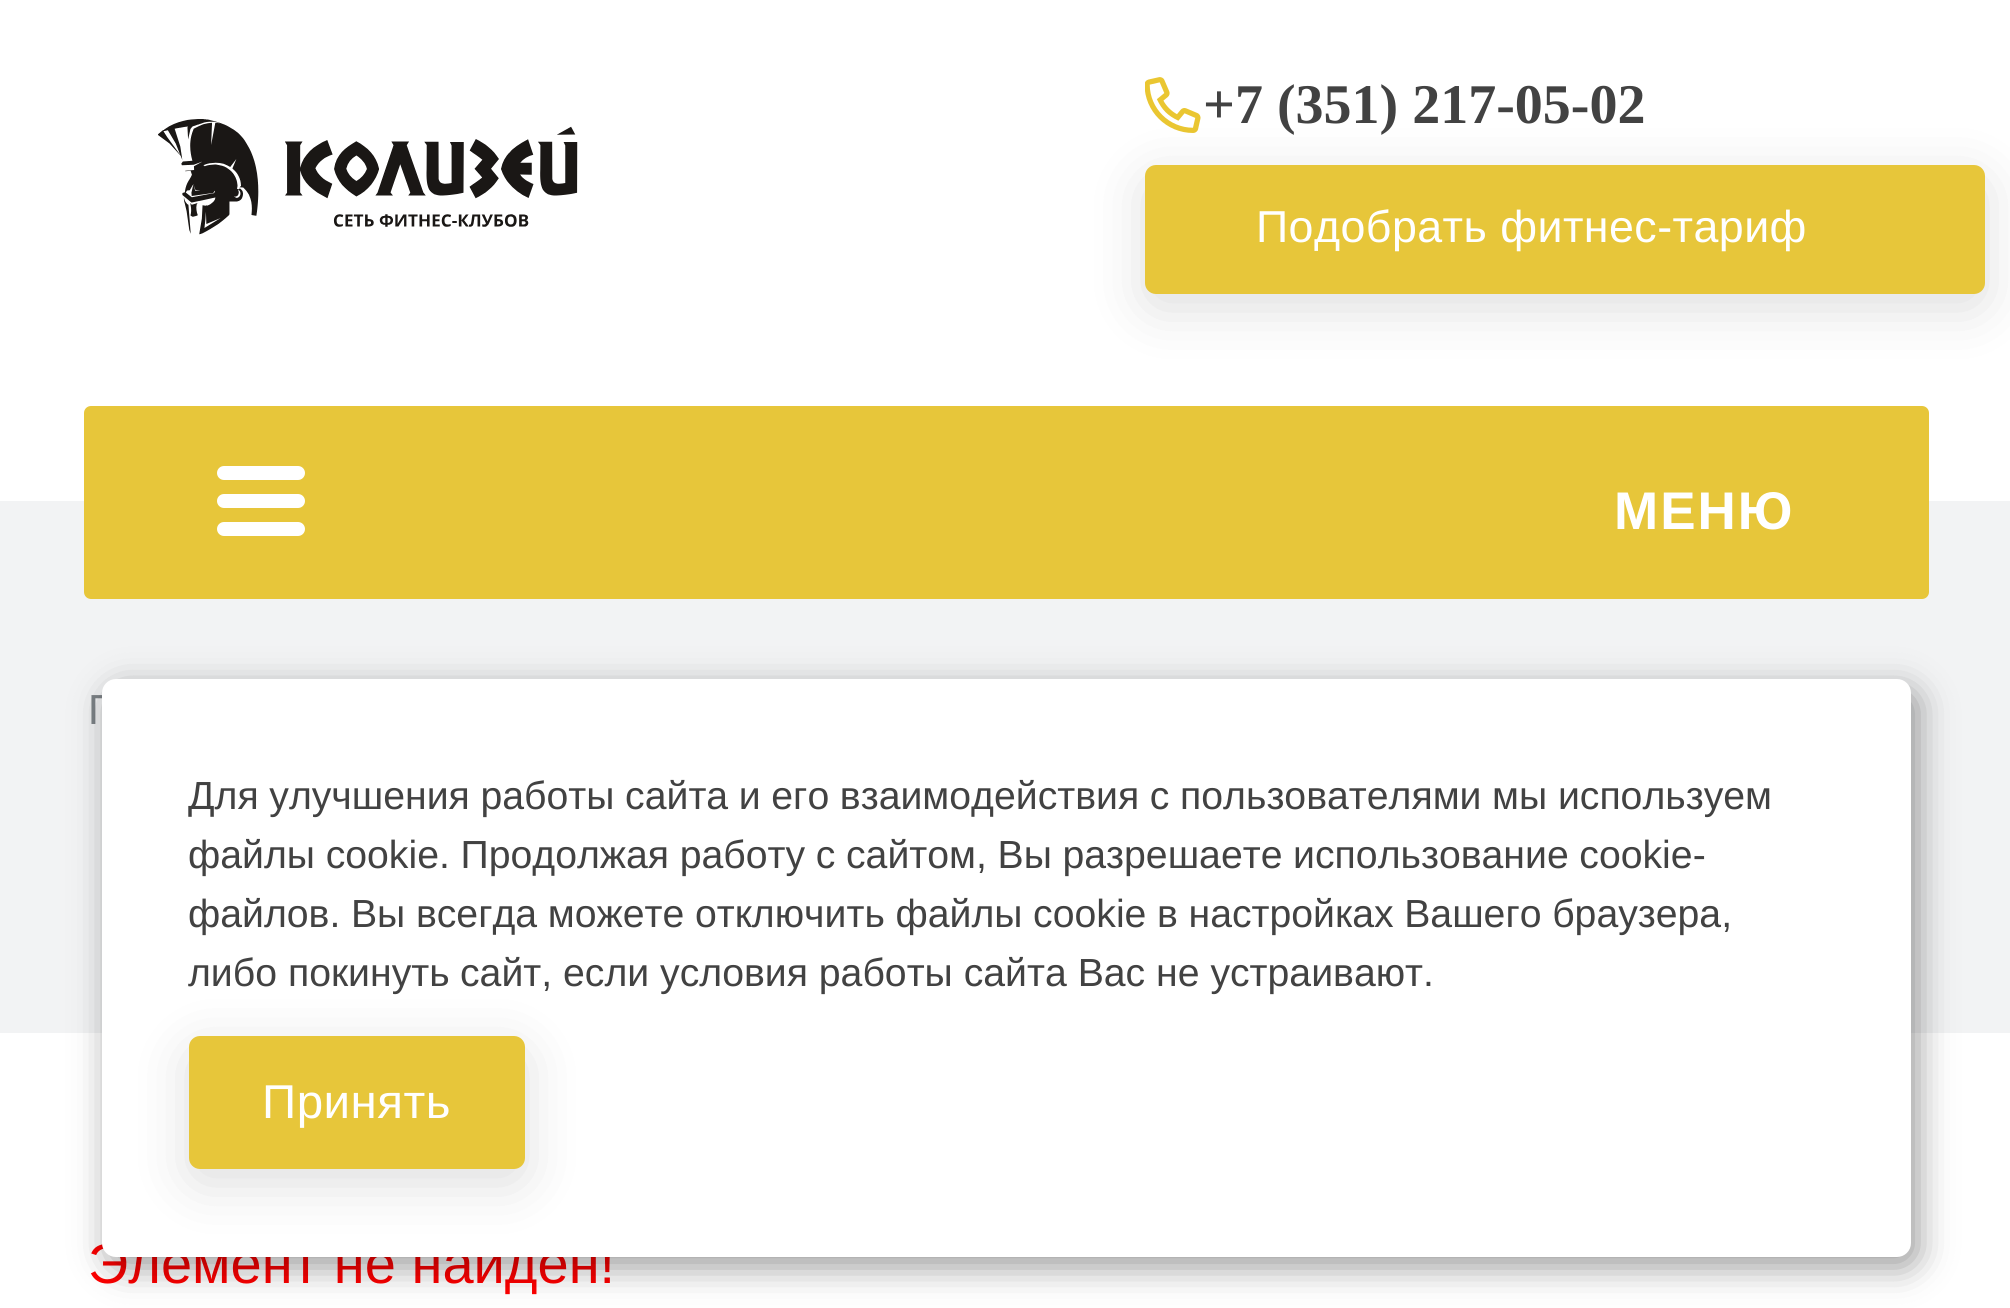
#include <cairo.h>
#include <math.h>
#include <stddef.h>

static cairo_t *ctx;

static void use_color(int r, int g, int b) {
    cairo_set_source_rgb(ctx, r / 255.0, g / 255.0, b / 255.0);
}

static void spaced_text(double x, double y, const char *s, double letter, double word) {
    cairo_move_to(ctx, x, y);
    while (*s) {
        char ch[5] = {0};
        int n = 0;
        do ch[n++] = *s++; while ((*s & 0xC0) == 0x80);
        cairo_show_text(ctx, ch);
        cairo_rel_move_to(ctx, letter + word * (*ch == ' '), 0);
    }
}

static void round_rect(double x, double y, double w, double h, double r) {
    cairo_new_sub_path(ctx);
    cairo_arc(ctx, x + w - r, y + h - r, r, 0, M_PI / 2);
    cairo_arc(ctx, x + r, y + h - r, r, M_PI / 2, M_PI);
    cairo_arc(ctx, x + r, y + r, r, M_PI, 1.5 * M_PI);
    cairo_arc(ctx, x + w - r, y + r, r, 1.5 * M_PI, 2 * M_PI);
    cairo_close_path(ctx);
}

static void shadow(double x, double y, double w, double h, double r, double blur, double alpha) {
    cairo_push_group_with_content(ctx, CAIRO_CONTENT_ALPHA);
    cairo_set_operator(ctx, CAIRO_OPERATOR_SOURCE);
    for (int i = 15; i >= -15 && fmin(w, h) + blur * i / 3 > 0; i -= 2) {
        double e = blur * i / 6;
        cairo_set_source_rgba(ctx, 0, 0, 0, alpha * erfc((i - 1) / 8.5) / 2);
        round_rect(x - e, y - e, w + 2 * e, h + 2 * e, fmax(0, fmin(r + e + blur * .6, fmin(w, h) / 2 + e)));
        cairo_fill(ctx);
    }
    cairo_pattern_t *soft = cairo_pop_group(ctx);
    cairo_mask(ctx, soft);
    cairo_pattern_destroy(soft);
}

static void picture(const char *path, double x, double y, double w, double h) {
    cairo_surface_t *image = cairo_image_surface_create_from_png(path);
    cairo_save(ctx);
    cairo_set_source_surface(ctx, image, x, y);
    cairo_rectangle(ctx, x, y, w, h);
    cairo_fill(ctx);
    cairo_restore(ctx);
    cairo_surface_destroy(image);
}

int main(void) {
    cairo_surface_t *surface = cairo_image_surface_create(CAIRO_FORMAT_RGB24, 2010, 1308);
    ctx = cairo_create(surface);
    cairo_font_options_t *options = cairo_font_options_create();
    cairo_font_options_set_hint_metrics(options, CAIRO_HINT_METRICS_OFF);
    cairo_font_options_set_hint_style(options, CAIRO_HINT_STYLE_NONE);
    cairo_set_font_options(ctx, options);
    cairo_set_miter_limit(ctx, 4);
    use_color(255, 255, 255);
    cairo_paint(ctx);
    picture("img1.png", 158, 119, 420, 116);
    picture("img2.png", 1145, 77, 56, 56);
    cairo_select_font_face(ctx, "Liberation Serif", CAIRO_FONT_SLANT_NORMAL, CAIRO_FONT_WEIGHT_BOLD);
    cairo_set_font_size(ctx, 56);
    use_color(66, 66, 66);
    cairo_move_to(ctx, 1203, 123);
    cairo_show_text(ctx, "+7 (351) 217-05-02");
    use_color(28, 28, 33);
    shadow(1145, 179, 840, 129, 11, 28, 0.15);
    use_color(231, 198, 58);
    round_rect(1145, 165, 840, 129, 11);
    cairo_fill(ctx);
    cairo_select_font_face(ctx, "Liberation Sans", CAIRO_FONT_SLANT_NORMAL, CAIRO_FONT_WEIGHT_NORMAL);
    cairo_set_font_size(ctx, 44.75);
    use_color(255, 255, 255);
    spaced_text(1256, 242, "Подобрать фитнес-тариф", 0.45, 0);
    use_color(242, 243, 244);
    cairo_rectangle(ctx, 0, 501, 2010, 532);
    cairo_fill(ctx);
    use_color(231, 198, 58);
    round_rect(84, 406, 1845, 193, 7);
    cairo_fill(ctx);
    use_color(255, 255, 255);
    round_rect(217, 466, 88, 14, 7);
    cairo_fill(ctx);
    round_rect(217, 494, 88, 14, 7);
    cairo_fill(ctx);
    round_rect(217, 522, 88, 14, 7);
    cairo_fill(ctx);
    cairo_select_font_face(ctx, "Liberation Sans", CAIRO_FONT_SLANT_NORMAL, CAIRO_FONT_WEIGHT_BOLD);
    cairo_set_font_size(ctx, 53);
    spaced_text(1614, 529, "МЕНЮ", 2, 0);
    cairo_select_font_face(ctx, "Liberation Sans", CAIRO_FONT_SLANT_NORMAL, CAIRO_FONT_WEIGHT_NORMAL);
    cairo_set_font_size(ctx, 42);
    use_color(125, 131, 135);
    spaced_text(88, 724, "Г", -1, 0);
    cairo_set_font_size(ctx, 56);
    use_color(255, 0, 0);
    cairo_move_to(ctx, 88, 1283);
    cairo_show_text(ctx, "Элемент не найден!");
    use_color(0, 0, 0);
    shadow(109, 690, 1809, 577, 14, 17.5, 0.4);
    use_color(255, 255, 255);
    round_rect(102, 679, 1809, 578, 14);
    cairo_fill(ctx);
    cairo_set_font_size(ctx, 39.2);
    use_color(66, 66, 66);
    spaced_text(188, 809, "Для улучшения работы сайта и его взаимодействия с пользователями мы используем", 0, -0.25);
    spaced_text(188, 868, "файлы cookie. Продолжая работу с сайтом, Вы разрешаете использование cookie-", 0, -0.25);
    spaced_text(188, 927, "файлов. Вы всегда можете отключить файлы cookie в настройках Вашего браузера,", 0, -0.25);
    cairo_move_to(ctx, 188, 986);
    cairo_show_text(ctx, "либо покинуть");
    cairo_move_to(ctx, 460, 986);
    cairo_show_text(ctx, "сайт, если условия работы сайта Вас не устраивают.");
    use_color(28, 28, 33);
    shadow(189, 1050, 336, 133, 11, 28, 0.15);
    use_color(231, 198, 58);
    round_rect(189, 1036, 336, 133, 11);
    cairo_fill(ctx);
    cairo_set_font_size(ctx, 47.5);
    use_color(255, 255, 255);
    spaced_text(262, 1118, "Принять", 0.5, 0);
    cairo_surface_write_to_png(surface, "result.png");
    cairo_font_options_destroy(options);
    cairo_destroy(ctx);
    cairo_surface_destroy(surface);
    return 0;
}
